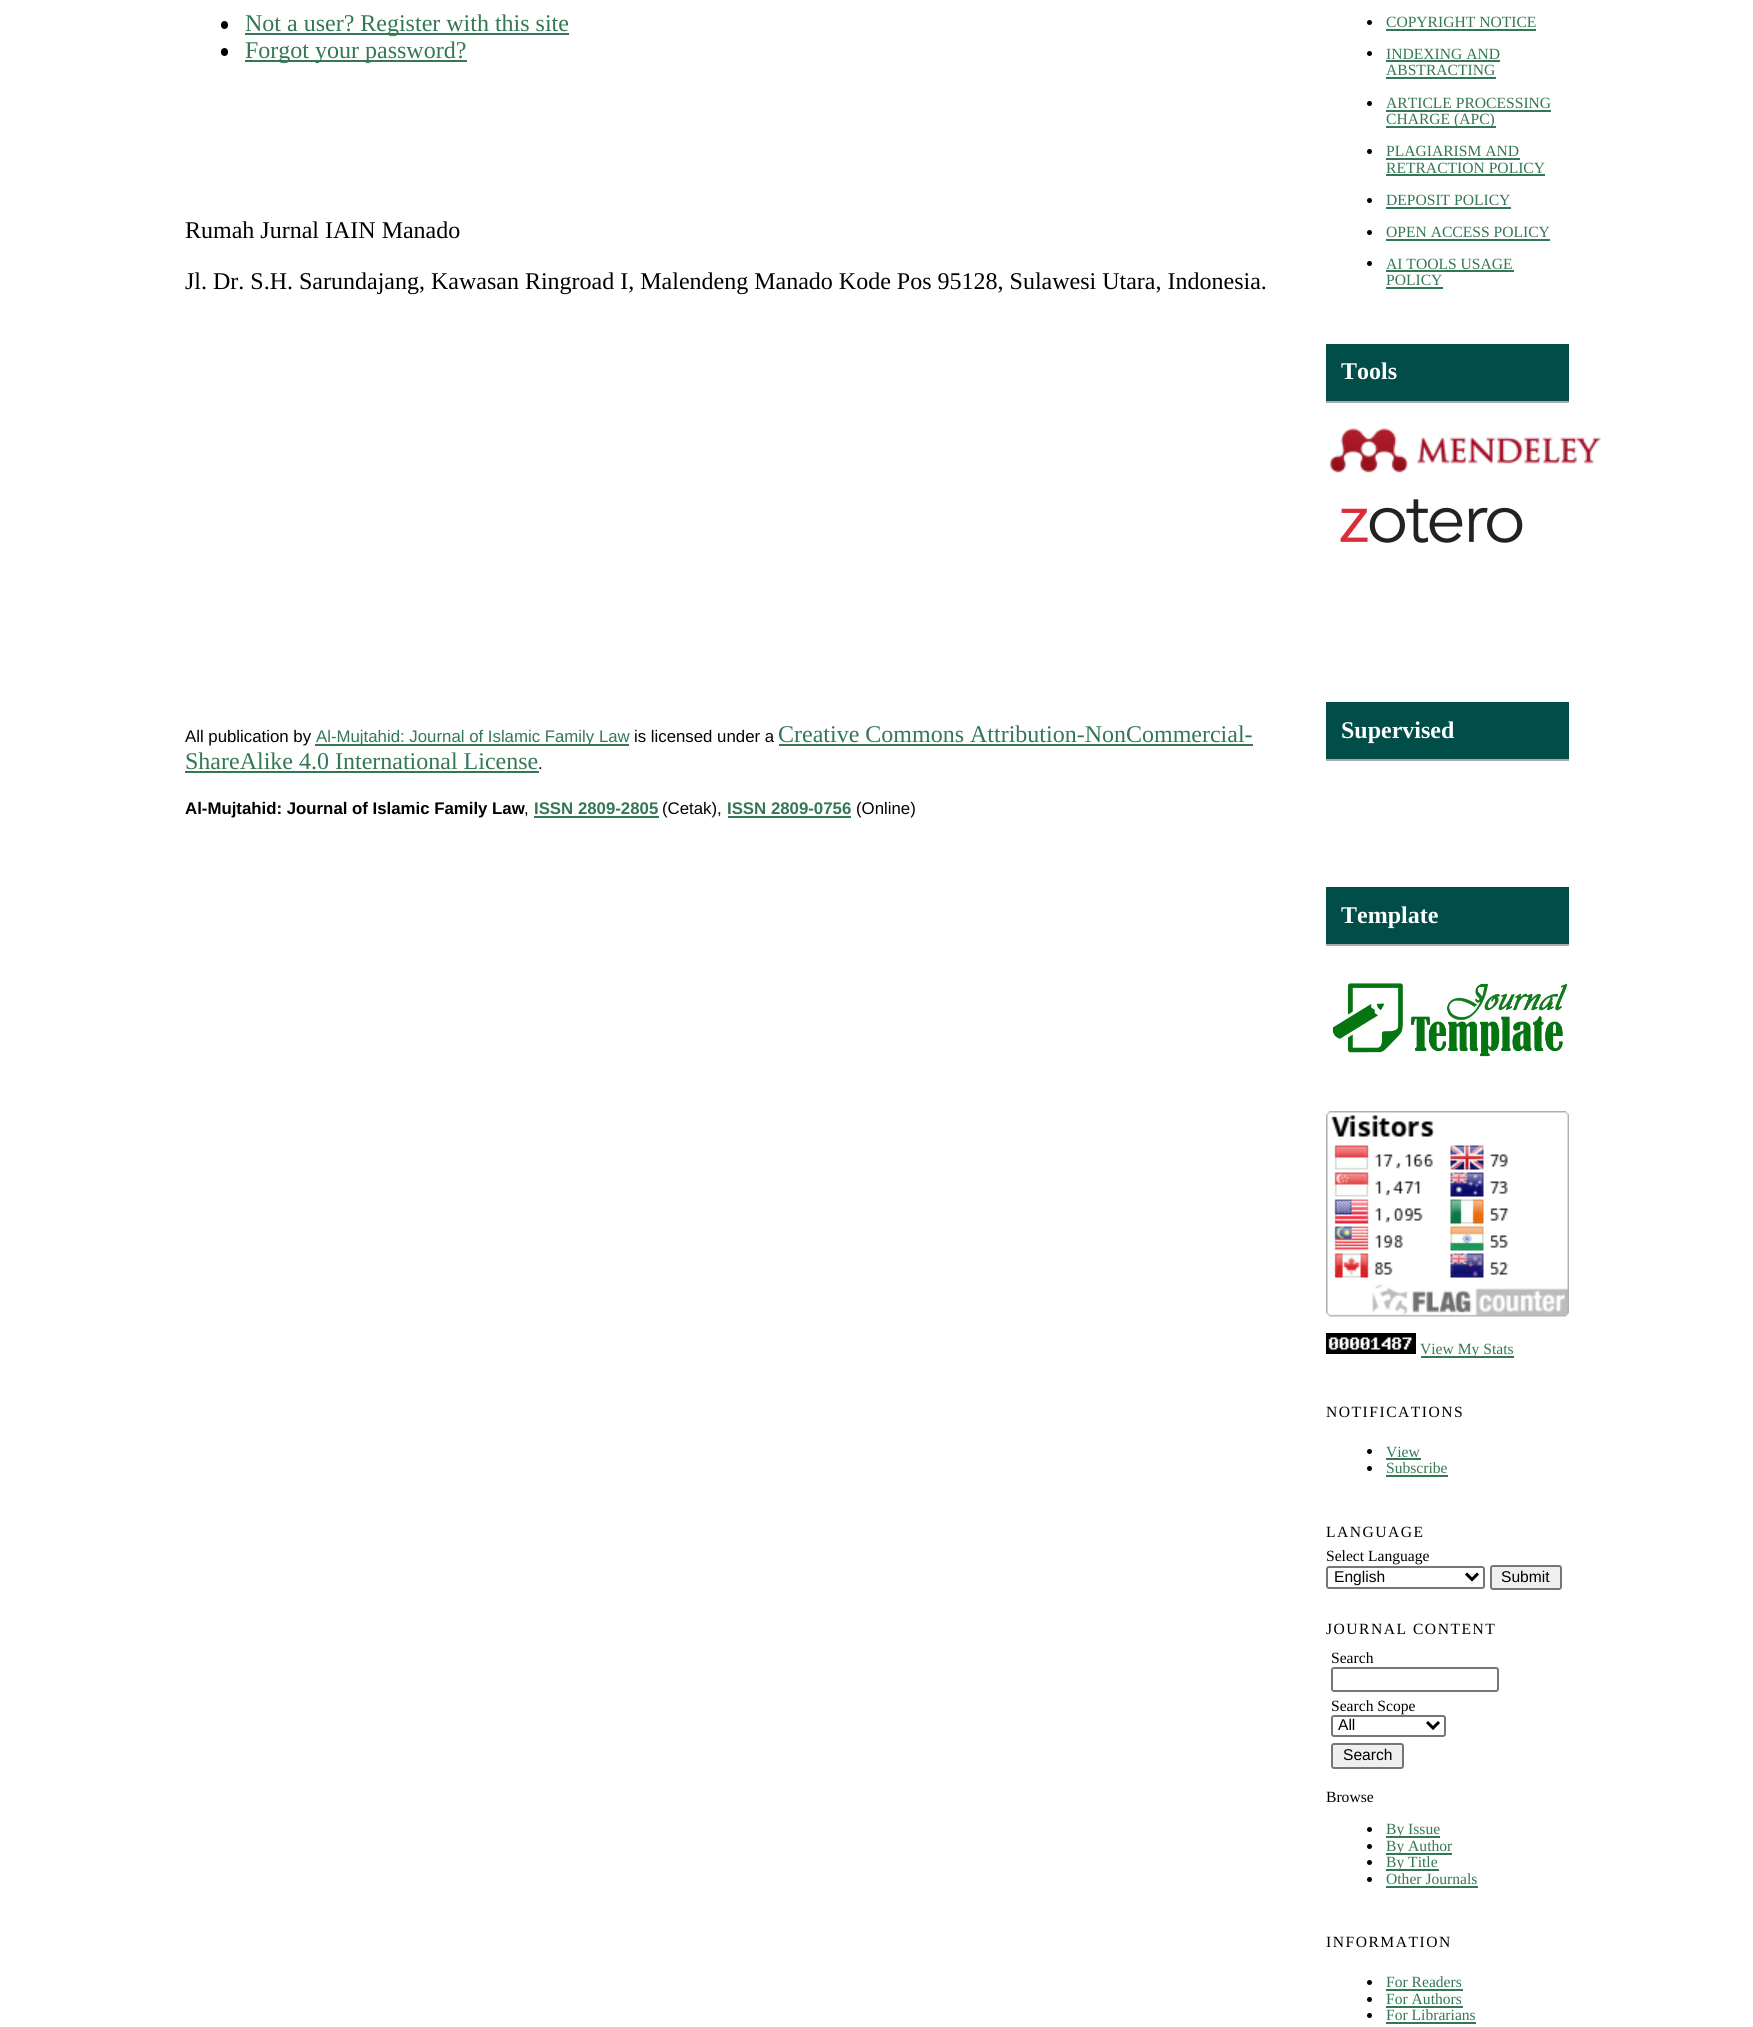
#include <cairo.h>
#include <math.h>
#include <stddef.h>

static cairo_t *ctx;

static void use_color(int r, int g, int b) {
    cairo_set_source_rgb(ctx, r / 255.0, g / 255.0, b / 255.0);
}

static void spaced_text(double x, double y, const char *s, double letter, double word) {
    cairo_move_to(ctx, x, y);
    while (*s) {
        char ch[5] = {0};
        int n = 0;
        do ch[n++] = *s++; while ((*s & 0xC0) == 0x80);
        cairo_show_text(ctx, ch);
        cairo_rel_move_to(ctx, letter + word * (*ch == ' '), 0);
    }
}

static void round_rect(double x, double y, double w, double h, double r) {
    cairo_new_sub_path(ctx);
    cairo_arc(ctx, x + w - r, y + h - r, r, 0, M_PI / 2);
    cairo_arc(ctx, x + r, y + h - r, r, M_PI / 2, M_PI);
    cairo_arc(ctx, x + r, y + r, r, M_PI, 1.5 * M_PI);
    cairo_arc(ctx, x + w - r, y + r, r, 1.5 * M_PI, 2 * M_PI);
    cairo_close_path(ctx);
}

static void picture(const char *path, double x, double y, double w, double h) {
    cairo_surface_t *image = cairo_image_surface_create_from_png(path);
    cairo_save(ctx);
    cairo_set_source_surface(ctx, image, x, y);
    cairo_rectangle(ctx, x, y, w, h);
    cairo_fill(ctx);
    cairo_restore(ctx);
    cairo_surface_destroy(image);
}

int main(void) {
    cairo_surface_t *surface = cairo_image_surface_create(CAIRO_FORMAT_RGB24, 1753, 2027);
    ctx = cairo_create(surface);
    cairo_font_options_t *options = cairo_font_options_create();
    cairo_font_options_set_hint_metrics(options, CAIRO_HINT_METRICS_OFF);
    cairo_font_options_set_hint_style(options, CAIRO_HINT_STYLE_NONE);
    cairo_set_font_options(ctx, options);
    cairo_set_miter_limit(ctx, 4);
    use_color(255, 255, 255);
    cairo_paint(ctx);
    use_color(0, 0, 0);
    round_rect(221, 21, 7, 8, 3.5);
    cairo_fill(ctx);
    use_color(51, 119, 85);
    cairo_rectangle(ctx, 245, 33, 324, 2);
    cairo_fill(ctx);
    cairo_select_font_face(ctx, "Liberation Serif", CAIRO_FONT_SLANT_NORMAL, CAIRO_FONT_WEIGHT_NORMAL);
    cairo_set_font_size(ctx, 24);
    cairo_move_to(ctx, 245, 31);
    cairo_show_text(ctx, "Not a user? Register with this site");
    use_color(0, 0, 0);
    round_rect(221, 48, 7, 8, 3.5);
    cairo_fill(ctx);
    use_color(51, 119, 85);
    cairo_rectangle(ctx, 245, 60, 222, 2);
    cairo_fill(ctx);
    cairo_move_to(ctx, 245, 58);
    cairo_show_text(ctx, "Forgot your password?");
    use_color(0, 0, 0);
    cairo_move_to(ctx, 185, 238);
    cairo_show_text(ctx, "Rumah Jurnal IAIN Manado");
    cairo_move_to(ctx, 185, 289);
    cairo_show_text(ctx, "Jl. Dr. S.H. Sarundajang, Kawasan Ringroad I, Malendeng Manado Kode Pos 95128, Sulawesi Utara, Indonesia.");
    cairo_select_font_face(ctx, "Liberation Sans", CAIRO_FONT_SLANT_NORMAL, CAIRO_FONT_WEIGHT_NORMAL);
    cairo_set_font_size(ctx, 16.8);
    cairo_move_to(ctx, 185, 742);
    cairo_show_text(ctx, "All publication by");
    use_color(51, 119, 85);
    cairo_rectangle(ctx, 315, 744, 314, 2);
    cairo_fill(ctx);
    cairo_move_to(ctx, 316, 742);
    cairo_show_text(ctx, "Al-Mujtahid: Journal of Islamic Family Law");
    use_color(0, 0, 0);
    cairo_move_to(ctx, 634, 742);
    cairo_show_text(ctx, "is licensed under a");
    cairo_select_font_face(ctx, "Liberation Serif", CAIRO_FONT_SLANT_NORMAL, CAIRO_FONT_WEIGHT_NORMAL);
    cairo_set_font_size(ctx, 24);
    use_color(51, 119, 85);
    cairo_move_to(ctx, 778, 742);
    cairo_show_text(ctx, "Creative Commons Attribution-NonCommercial-");
    cairo_rectangle(ctx, 779, 744, 474, 2);
    cairo_fill(ctx);
    cairo_move_to(ctx, 185, 769);
    cairo_show_text(ctx, "ShareAlike 4.0 International License");
    cairo_rectangle(ctx, 185, 771, 354, 2);
    cairo_fill(ctx);
    cairo_select_font_face(ctx, "Liberation Sans", CAIRO_FONT_SLANT_NORMAL, CAIRO_FONT_WEIGHT_NORMAL);
    cairo_set_font_size(ctx, 16.8);
    use_color(0, 0, 0);
    cairo_move_to(ctx, 538, 769);
    cairo_show_text(ctx, ".");
    cairo_select_font_face(ctx, "Liberation Sans", CAIRO_FONT_SLANT_NORMAL, CAIRO_FONT_WEIGHT_BOLD);
    cairo_move_to(ctx, 185, 814);
    cairo_show_text(ctx, "Al-Mujtahid: Journal of Islamic Family Law");
    cairo_select_font_face(ctx, "Liberation Sans", CAIRO_FONT_SLANT_NORMAL, CAIRO_FONT_WEIGHT_NORMAL);
    cairo_move_to(ctx, 524, 814);
    cairo_show_text(ctx, ",");
    cairo_select_font_face(ctx, "Liberation Sans", CAIRO_FONT_SLANT_NORMAL, CAIRO_FONT_WEIGHT_BOLD);
    use_color(51, 119, 85);
    cairo_move_to(ctx, 534, 814);
    cairo_show_text(ctx, "ISSN 2809-2805");
    cairo_rectangle(ctx, 534, 816, 125, 2);
    cairo_fill(ctx);
    cairo_select_font_face(ctx, "Liberation Sans", CAIRO_FONT_SLANT_NORMAL, CAIRO_FONT_WEIGHT_NORMAL);
    use_color(0, 0, 0);
    cairo_move_to(ctx, 662, 814);
    cairo_show_text(ctx, "(Cetak),");
    cairo_select_font_face(ctx, "Liberation Sans", CAIRO_FONT_SLANT_NORMAL, CAIRO_FONT_WEIGHT_BOLD);
    use_color(51, 119, 85);
    cairo_move_to(ctx, 727, 814);
    cairo_show_text(ctx, "ISSN 2809-0756");
    cairo_rectangle(ctx, 728, 816, 123, 2);
    cairo_fill(ctx);
    cairo_select_font_face(ctx, "Liberation Sans", CAIRO_FONT_SLANT_NORMAL, CAIRO_FONT_WEIGHT_NORMAL);
    use_color(0, 0, 0);
    cairo_move_to(ctx, 856, 814);
    cairo_show_text(ctx, "(Online)");
    cairo_new_path(ctx);
    cairo_arc(ctx, 1369.5, 22.5, 2.5, 0, 2 * M_PI);
    cairo_fill(ctx);
    cairo_select_font_face(ctx, "Liberation Serif", CAIRO_FONT_SLANT_NORMAL, CAIRO_FONT_WEIGHT_NORMAL);
    cairo_set_font_size(ctx, 15.6);
    use_color(51, 119, 85);
    cairo_move_to(ctx, 1386, 27);
    cairo_show_text(ctx, "COPYRIGHT NOTICE");
    cairo_rectangle(ctx, 1386, 29, 150, 2);
    cairo_fill(ctx);
    use_color(0, 0, 0);
    cairo_arc(ctx, 1369.5, 53.5, 2.5, 0, 2 * M_PI);
    cairo_fill(ctx);
    use_color(51, 119, 85);
    cairo_move_to(ctx, 1386, 59);
    cairo_show_text(ctx, "INDEXING AND");
    cairo_rectangle(ctx, 1386, 60, 114, 2);
    cairo_fill(ctx);
    cairo_move_to(ctx, 1386, 75);
    cairo_show_text(ctx, "ABSTRACTING");
    cairo_rectangle(ctx, 1386, 77, 110, 2);
    cairo_fill(ctx);
    use_color(0, 0, 0);
    cairo_arc(ctx, 1369.5, 103.5, 2.5, 0, 2 * M_PI);
    cairo_fill(ctx);
    use_color(51, 119, 85);
    cairo_move_to(ctx, 1386, 108);
    cairo_show_text(ctx, "ARTICLE PROCESSING");
    cairo_rectangle(ctx, 1386, 110, 165, 2);
    cairo_fill(ctx);
    cairo_rectangle(ctx, 1386, 126, 110, 2);
    cairo_fill(ctx);
    cairo_move_to(ctx, 1386, 124);
    cairo_show_text(ctx, "CHARGE (APC)");
    use_color(0, 0, 0);
    cairo_new_path(ctx);
    cairo_arc(ctx, 1369.5, 151.5, 2.5, 0, 2 * M_PI);
    cairo_fill(ctx);
    use_color(51, 119, 85);
    cairo_move_to(ctx, 1386, 156);
    cairo_show_text(ctx, "PLAGIARISM AND");
    cairo_rectangle(ctx, 1386, 158, 134, 2);
    cairo_fill(ctx);
    cairo_move_to(ctx, 1386, 173);
    cairo_show_text(ctx, "RETRACTION POLICY");
    cairo_rectangle(ctx, 1386, 174, 159, 2);
    cairo_fill(ctx);
    use_color(0, 0, 0);
    cairo_arc(ctx, 1369.5, 200.5, 2.5, 0, 2 * M_PI);
    cairo_fill(ctx);
    use_color(51, 119, 85);
    cairo_move_to(ctx, 1386, 205);
    cairo_show_text(ctx, "DEPOSIT POLICY");
    cairo_rectangle(ctx, 1386, 207, 125, 2);
    cairo_fill(ctx);
    use_color(0, 0, 0);
    cairo_arc(ctx, 1369.5, 232.5, 2.5, 0, 2 * M_PI);
    cairo_fill(ctx);
    use_color(51, 119, 85);
    cairo_move_to(ctx, 1386, 237);
    cairo_show_text(ctx, "OPEN ACCESS POLICY");
    cairo_rectangle(ctx, 1386, 239, 164, 2);
    cairo_fill(ctx);
    use_color(0, 0, 0);
    cairo_arc(ctx, 1369.5, 263.5, 2.5, 0, 2 * M_PI);
    cairo_fill(ctx);
    use_color(51, 119, 85);
    cairo_move_to(ctx, 1386, 269);
    cairo_show_text(ctx, "AI TOOLS USAGE");
    cairo_rectangle(ctx, 1386, 270, 128, 2);
    cairo_fill(ctx);
    cairo_move_to(ctx, 1386, 285);
    cairo_show_text(ctx, "POLICY");
    cairo_rectangle(ctx, 1386, 287, 57, 2);
    cairo_fill(ctx);
    use_color(0, 77, 73);
    cairo_rectangle(ctx, 1326, 344, 243, 57);
    cairo_fill(ctx);
    use_color(170, 170, 170);
    cairo_rectangle(ctx, 1326, 401, 243, 2);
    cairo_fill(ctx);
    cairo_select_font_face(ctx, "Liberation Serif", CAIRO_FONT_SLANT_NORMAL, CAIRO_FONT_WEIGHT_BOLD);
    cairo_set_font_size(ctx, 24);
    use_color(255, 255, 255);
    cairo_move_to(ctx, 1341, 379);
    cairo_show_text(ctx, "Tools");
    picture("img1.png", 1330, 428, 271, 45);
    picture("img2.png", 1340, 499, 183, 44);
    use_color(0, 77, 73);
    cairo_rectangle(ctx, 1326, 702, 243, 57);
    cairo_fill(ctx);
    use_color(170, 170, 170);
    cairo_rectangle(ctx, 1326, 759, 243, 2);
    cairo_fill(ctx);
    use_color(255, 255, 255);
    cairo_move_to(ctx, 1341, 738);
    cairo_show_text(ctx, "Supervised");
    use_color(0, 77, 73);
    cairo_rectangle(ctx, 1326, 887, 243, 57);
    cairo_fill(ctx);
    use_color(170, 170, 170);
    cairo_rectangle(ctx, 1326, 944, 243, 2);
    cairo_fill(ctx);
    use_color(255, 255, 255);
    cairo_move_to(ctx, 1341, 923);
    cairo_show_text(ctx, "Template");
    picture("img3.png", 1332, 983, 236, 74);
    picture("img4.png", 1326, 1111, 243, 206);
    picture("img5.png", 1326, 1333, 90, 21);
    use_color(51, 119, 85);
    cairo_rectangle(ctx, 1421, 1356, 93, 2);
    cairo_fill(ctx);
    cairo_select_font_face(ctx, "Liberation Serif", CAIRO_FONT_SLANT_NORMAL, CAIRO_FONT_WEIGHT_NORMAL);
    cairo_set_font_size(ctx, 15.6);
    cairo_move_to(ctx, 1420, 1354);
    cairo_show_text(ctx, "View My Stats");
    use_color(0, 0, 0);
    spaced_text(1326, 1417, "NOTIFICATIONS", 1.5, 0);
    cairo_new_path(ctx);
    cairo_arc(ctx, 1369.5, 1451.5, 2.5, 0, 2 * M_PI);
    cairo_fill(ctx);
    use_color(51, 119, 85);
    cairo_move_to(ctx, 1386, 1457);
    cairo_show_text(ctx, "View");
    cairo_rectangle(ctx, 1386, 1458, 35, 2);
    cairo_fill(ctx);
    use_color(0, 0, 0);
    cairo_arc(ctx, 1369.5, 1468.5, 2.5, 0, 2 * M_PI);
    cairo_fill(ctx);
    use_color(51, 119, 85);
    cairo_move_to(ctx, 1386, 1473);
    cairo_show_text(ctx, "Subscribe");
    cairo_rectangle(ctx, 1386, 1475, 62, 2);
    cairo_fill(ctx);
    use_color(0, 0, 0);
    spaced_text(1326, 1537, "LANGUAGE", 1.5, 0);
    cairo_move_to(ctx, 1326, 1561);
    cairo_show_text(ctx, "Select Language");
    round_rect(1327, 1567, 157, 21, 2);
    use_color(118, 118, 118);
    cairo_stroke(ctx);
    cairo_new_path(ctx);
    cairo_move_to(ctx, 1466, 1573.5);
    cairo_line_to(ctx, 1472, 1579.5);
    cairo_line_to(ctx, 1478, 1573.5);
    use_color(0, 0, 0);
    cairo_set_line_width(ctx, 3);
    cairo_stroke(ctx);
    cairo_select_font_face(ctx, "Liberation Sans", CAIRO_FONT_SLANT_NORMAL, CAIRO_FONT_WEIGHT_NORMAL);
    cairo_move_to(ctx, 1334, 1582);
    cairo_show_text(ctx, "English");
    use_color(239, 239, 239);
    round_rect(1491, 1566, 70, 23, 2);
    cairo_fill_preserve(ctx);
    use_color(118, 118, 118);
    cairo_set_line_width(ctx, 2);
    cairo_stroke(ctx);
    use_color(0, 0, 0);
    cairo_move_to(ctx, 1501, 1582);
    cairo_show_text(ctx, "Submit");
    cairo_select_font_face(ctx, "Liberation Serif", CAIRO_FONT_SLANT_NORMAL, CAIRO_FONT_WEIGHT_NORMAL);
    spaced_text(1326, 1634, "JOURNAL CONTENT", 1.5, 0);
    cairo_move_to(ctx, 1331, 1663);
    cairo_show_text(ctx, "Search");
    round_rect(1332, 1668, 166, 23, 2);
    use_color(118, 118, 118);
    cairo_stroke(ctx);
    use_color(0, 0, 0);
    cairo_move_to(ctx, 1331, 1711);
    cairo_show_text(ctx, "Search Scope");
    round_rect(1332, 1716, 113, 20, 2);
    use_color(118, 118, 118);
    cairo_stroke(ctx);
    cairo_new_path(ctx);
    cairo_move_to(ctx, 1427, 1722);
    cairo_line_to(ctx, 1433, 1728);
    cairo_line_to(ctx, 1439, 1722);
    use_color(0, 0, 0);
    cairo_set_line_width(ctx, 3);
    cairo_stroke(ctx);
    cairo_select_font_face(ctx, "Liberation Sans", CAIRO_FONT_SLANT_NORMAL, CAIRO_FONT_WEIGHT_NORMAL);
    cairo_move_to(ctx, 1338, 1730);
    cairo_show_text(ctx, "All");
    use_color(239, 239, 239);
    round_rect(1332, 1744, 71, 24, 2);
    cairo_fill_preserve(ctx);
    use_color(118, 118, 118);
    cairo_set_line_width(ctx, 2);
    cairo_stroke(ctx);
    use_color(0, 0, 0);
    cairo_move_to(ctx, 1343, 1760);
    cairo_show_text(ctx, "Search");
    cairo_select_font_face(ctx, "Liberation Serif", CAIRO_FONT_SLANT_NORMAL, CAIRO_FONT_WEIGHT_NORMAL);
    cairo_move_to(ctx, 1326, 1802);
    cairo_show_text(ctx, "Browse");
    cairo_new_path(ctx);
    cairo_arc(ctx, 1369.5, 1829.5, 2.5, 0, 2 * M_PI);
    cairo_fill(ctx);
    use_color(51, 119, 85);
    cairo_rectangle(ctx, 1386, 1836, 54, 2);
    cairo_fill(ctx);
    cairo_move_to(ctx, 1386, 1834);
    cairo_show_text(ctx, "By Issue");
    use_color(0, 0, 0);
    cairo_new_path(ctx);
    cairo_arc(ctx, 1369.5, 1846.5, 2.5, 0, 2 * M_PI);
    cairo_fill(ctx);
    use_color(51, 119, 85);
    cairo_rectangle(ctx, 1386, 1853, 66, 2);
    cairo_fill(ctx);
    cairo_move_to(ctx, 1386, 1851);
    cairo_show_text(ctx, "By Author");
    use_color(0, 0, 0);
    cairo_new_path(ctx);
    cairo_arc(ctx, 1369.5, 1862.5, 2.5, 0, 2 * M_PI);
    cairo_fill(ctx);
    use_color(51, 119, 85);
    cairo_rectangle(ctx, 1386, 1869, 53, 2);
    cairo_fill(ctx);
    cairo_move_to(ctx, 1386, 1867);
    cairo_show_text(ctx, "By Title");
    use_color(0, 0, 0);
    cairo_new_path(ctx);
    cairo_arc(ctx, 1369.5, 1879.5, 2.5, 0, 2 * M_PI);
    cairo_fill(ctx);
    use_color(51, 119, 85);
    cairo_move_to(ctx, 1386, 1884);
    cairo_show_text(ctx, "Other Journals");
    cairo_rectangle(ctx, 1386, 1886, 92, 2);
    cairo_fill(ctx);
    use_color(0, 0, 0);
    spaced_text(1326, 1947, "INFORMATION", 1.5, 0);
    cairo_new_path(ctx);
    cairo_arc(ctx, 1369.5, 1982.5, 2.5, 0, 2 * M_PI);
    cairo_fill(ctx);
    use_color(51, 119, 85);
    cairo_move_to(ctx, 1386, 1987);
    cairo_show_text(ctx, "For Readers");
    cairo_rectangle(ctx, 1386, 1989, 77, 2);
    cairo_fill(ctx);
    use_color(0, 0, 0);
    cairo_arc(ctx, 1369.5, 1999.5, 2.5, 0, 2 * M_PI);
    cairo_fill(ctx);
    use_color(51, 119, 85);
    cairo_move_to(ctx, 1386, 2004);
    cairo_show_text(ctx, "For Authors");
    cairo_rectangle(ctx, 1386, 2006, 77, 2);
    cairo_fill(ctx);
    use_color(0, 0, 0);
    cairo_arc(ctx, 1369.5, 2015.5, 2.5, 0, 2 * M_PI);
    cairo_fill(ctx);
    use_color(51, 119, 85);
    cairo_move_to(ctx, 1386, 2020);
    cairo_show_text(ctx, "For Librarians");
    cairo_rectangle(ctx, 1386, 2022, 90, 2);
    cairo_fill(ctx);
    cairo_surface_write_to_png(surface, "result.png");
    cairo_font_options_destroy(options);
    cairo_destroy(ctx);
    cairo_surface_destroy(surface);
    return 0;
}
